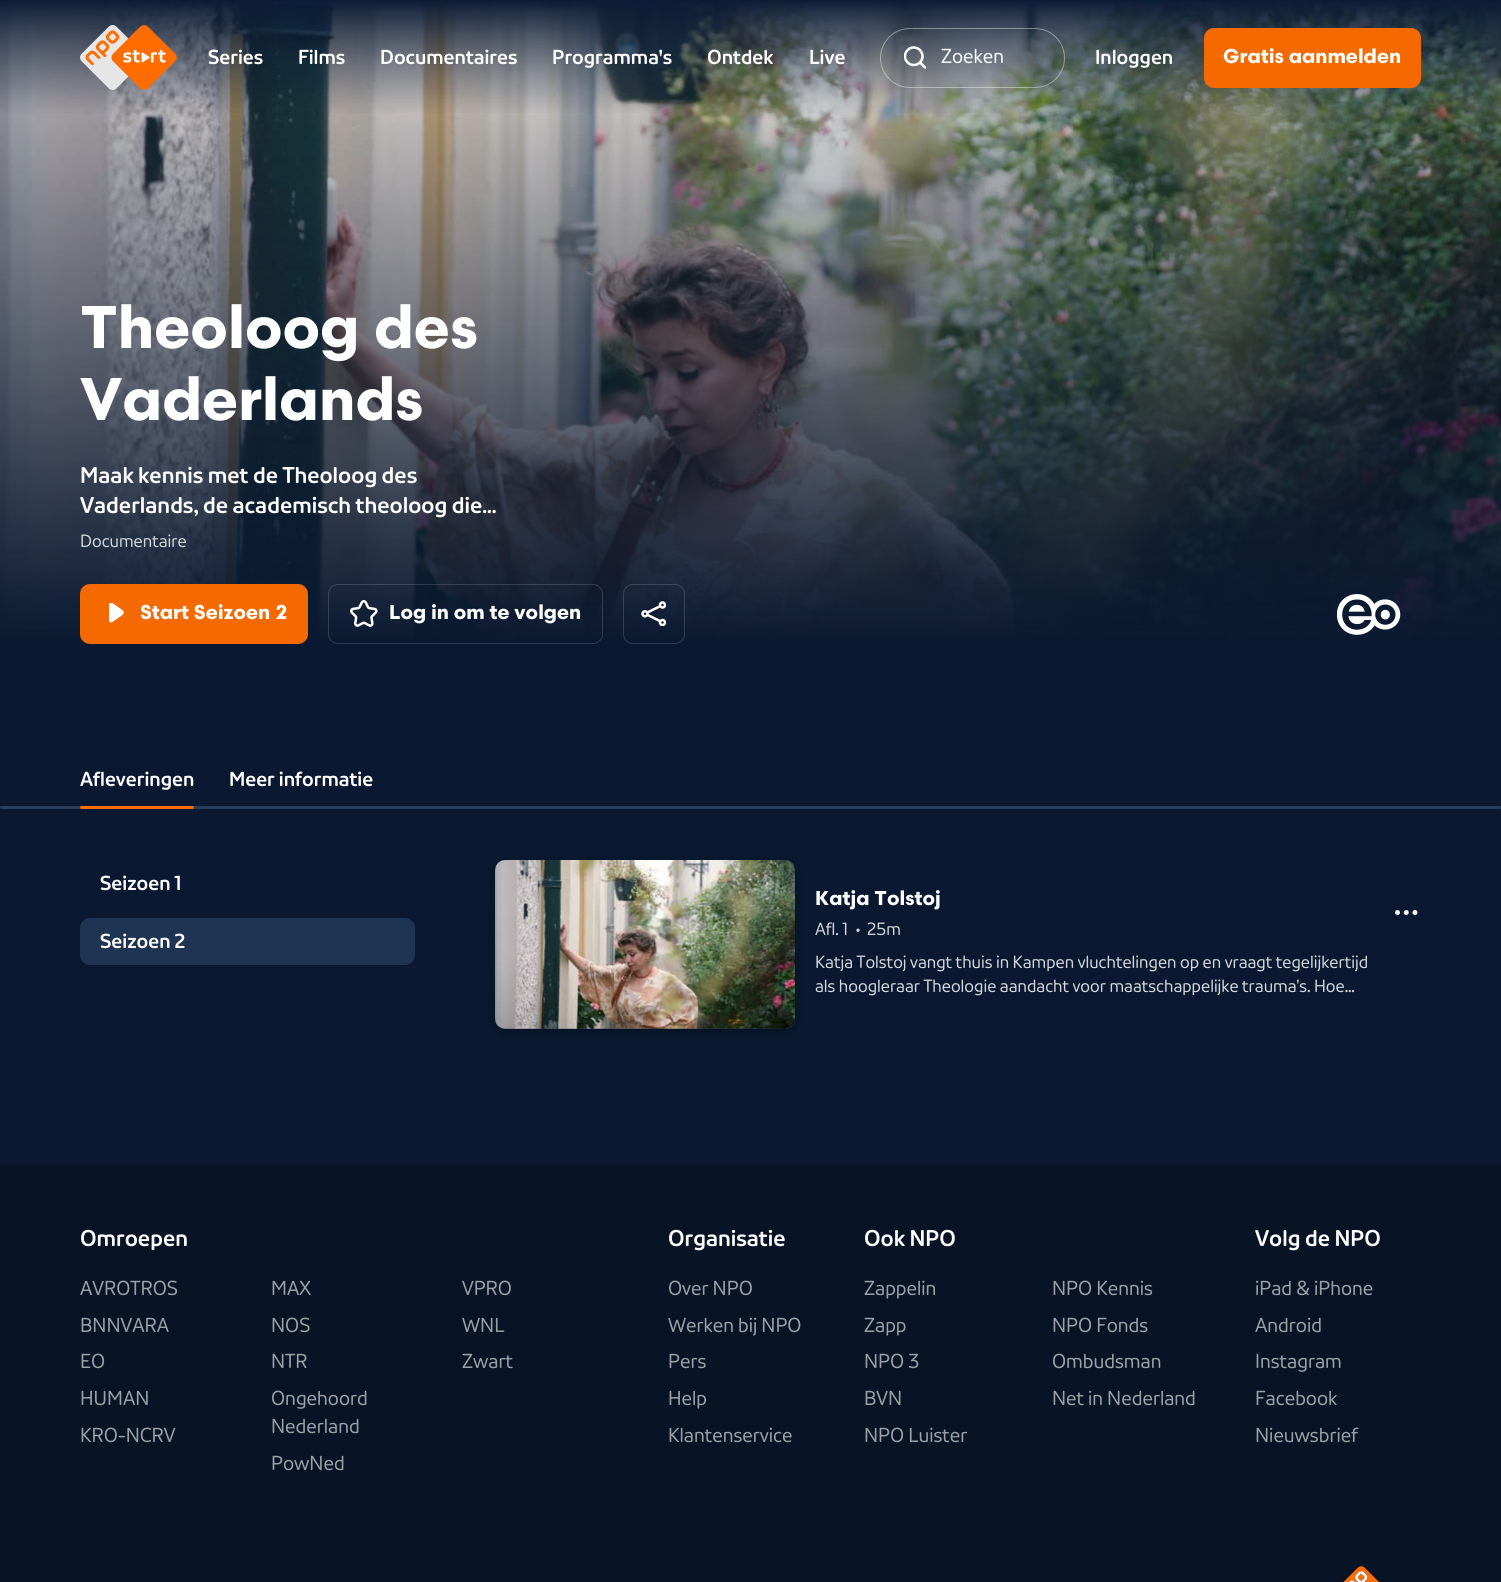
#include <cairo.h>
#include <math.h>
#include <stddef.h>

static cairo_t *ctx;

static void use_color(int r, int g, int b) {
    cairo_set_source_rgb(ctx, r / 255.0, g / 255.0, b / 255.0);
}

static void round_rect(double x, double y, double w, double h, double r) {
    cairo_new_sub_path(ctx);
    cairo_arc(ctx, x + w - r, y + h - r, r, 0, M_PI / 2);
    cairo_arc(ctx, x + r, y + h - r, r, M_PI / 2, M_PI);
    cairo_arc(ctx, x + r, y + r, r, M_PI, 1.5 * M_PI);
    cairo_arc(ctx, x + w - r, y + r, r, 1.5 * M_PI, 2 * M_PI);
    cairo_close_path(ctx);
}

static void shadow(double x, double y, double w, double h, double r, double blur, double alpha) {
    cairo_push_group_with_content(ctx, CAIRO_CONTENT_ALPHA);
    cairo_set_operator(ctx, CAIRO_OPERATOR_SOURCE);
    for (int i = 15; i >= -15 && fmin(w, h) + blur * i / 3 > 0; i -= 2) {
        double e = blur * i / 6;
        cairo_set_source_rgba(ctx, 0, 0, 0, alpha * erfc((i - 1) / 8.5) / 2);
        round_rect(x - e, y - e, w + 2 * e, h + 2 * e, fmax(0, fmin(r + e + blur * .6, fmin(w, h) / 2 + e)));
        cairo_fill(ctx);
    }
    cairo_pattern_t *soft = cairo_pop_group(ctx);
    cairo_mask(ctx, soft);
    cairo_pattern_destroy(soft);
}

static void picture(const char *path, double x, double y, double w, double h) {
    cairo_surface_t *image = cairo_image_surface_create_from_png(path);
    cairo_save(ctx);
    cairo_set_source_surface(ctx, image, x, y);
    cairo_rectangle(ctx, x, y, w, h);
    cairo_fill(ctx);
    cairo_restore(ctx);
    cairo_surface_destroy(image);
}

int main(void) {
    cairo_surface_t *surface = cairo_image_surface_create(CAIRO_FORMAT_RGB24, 1501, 1582);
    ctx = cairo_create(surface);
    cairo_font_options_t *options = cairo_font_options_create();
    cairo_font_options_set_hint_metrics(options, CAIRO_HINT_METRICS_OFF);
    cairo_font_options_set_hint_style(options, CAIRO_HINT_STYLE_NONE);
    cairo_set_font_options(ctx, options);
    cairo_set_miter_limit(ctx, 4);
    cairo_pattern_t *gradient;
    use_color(10, 25, 49);
    cairo_paint(ctx);
    picture("img3.png", 0, 1, 1501, 639);
    gradient = cairo_pattern_create_linear(751, 0, 751, 644);
    cairo_pattern_add_color_stop_rgba(gradient, 0, 0.039, 0.098, 0.192, 0);
    cairo_pattern_add_color_stop_rgba(gradient, 1, 0.039, 0.098, 0.192, 1);
    cairo_set_source(ctx, gradient);
    cairo_pattern_destroy(gradient);
    cairo_rectangle(ctx, 0, 14, 1501, 626);
    cairo_fill(ctx);
    gradient = cairo_pattern_create_linear(751, 115, 751, 0);
    cairo_pattern_add_color_stop_rgba(gradient, 0, 0.043, 0.11, 0.212, 0);
    cairo_pattern_add_color_stop_rgba(gradient, 1, 0.043, 0.11, 0.212, 1);
    cairo_set_source(ctx, gradient);
    cairo_pattern_destroy(gradient);
    cairo_rectangle(ctx, 0, 0, 1501, 113);
    cairo_fill(ctx);
    picture("img1.png", 80, 25, 97, 65);
    cairo_select_font_face(ctx, "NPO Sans", CAIRO_FONT_SLANT_NORMAL, CAIRO_FONT_WEIGHT_BOLD);
    cairo_set_font_size(ctx, 20);
    use_color(255, 255, 255);
    cairo_move_to(ctx, 208, 64);
    cairo_show_text(ctx, "Series");
    cairo_move_to(ctx, 298, 64);
    cairo_show_text(ctx, "Films");
    cairo_move_to(ctx, 380, 64);
    cairo_show_text(ctx, "Documentaires");
    cairo_move_to(ctx, 552, 64);
    cairo_show_text(ctx, "Programma's");
    cairo_move_to(ctx, 707, 64);
    cairo_show_text(ctx, "Ontdek");
    cairo_move_to(ctx, 809, 64);
    cairo_show_text(ctx, "Live");
    round_rect(880.5, 28.5, 184, 59, 29.5);
    cairo_set_source_rgba(ctx, 1, 1, 1, 0.4);
    cairo_set_line_width(ctx, 1);
    cairo_stroke(ctx);
    picture("img2.png", 904, 46, 22, 23);
    cairo_select_font_face(ctx, "NPO Sans", CAIRO_FONT_SLANT_NORMAL, CAIRO_FONT_WEIGHT_NORMAL);
    use_color(255, 255, 255);
    cairo_move_to(ctx, 941, 63);
    cairo_show_text(ctx, "Zoeken");
    cairo_select_font_face(ctx, "NPO Sans", CAIRO_FONT_SLANT_NORMAL, CAIRO_FONT_WEIGHT_BOLD);
    cairo_move_to(ctx, 1095, 64);
    cairo_show_text(ctx, "Inloggen");
    use_color(245, 106, 0);
    round_rect(1204, 28, 217, 60, 10);
    cairo_fill(ctx);
    cairo_select_font_face(ctx, "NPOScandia", CAIRO_FONT_SLANT_NORMAL, CAIRO_FONT_WEIGHT_BOLD);
    use_color(255, 255, 255);
    cairo_move_to(ctx, 1223, 63);
    cairo_show_text(ctx, "Gratis aanmelden");
    cairo_set_font_size(ctx, 60);
    cairo_move_to(ctx, 80, 348);
    cairo_show_text(ctx, "Theoloog des");
    cairo_move_to(ctx, 80, 420);
    cairo_show_text(ctx, "Vaderlands");
    cairo_select_font_face(ctx, "NPO Sans", CAIRO_FONT_SLANT_NORMAL, CAIRO_FONT_WEIGHT_BOLD);
    cairo_set_font_size(ctx, 22.5);
    cairo_move_to(ctx, 80, 483);
    cairo_show_text(ctx, "Maak kennis met de Theoloog des");
    cairo_move_to(ctx, 80, 513);
    cairo_show_text(ctx, "Vaderlands, de academisch theoloog die…");
    cairo_select_font_face(ctx, "NPO Sans", CAIRO_FONT_SLANT_NORMAL, CAIRO_FONT_WEIGHT_NORMAL);
    cairo_set_font_size(ctx, 17.5);
    use_color(211, 214, 218);
    cairo_move_to(ctx, 80, 547);
    cairo_show_text(ctx, "Documentaire");
    use_color(245, 106, 0);
    round_rect(80, 584, 228, 60, 10);
    cairo_fill(ctx);
    picture("img4.png", 109, 603, 15, 20);
    cairo_select_font_face(ctx, "NPOScandia", CAIRO_FONT_SLANT_NORMAL, CAIRO_FONT_WEIGHT_BOLD);
    cairo_set_font_size(ctx, 20);
    use_color(255, 255, 255);
    cairo_move_to(ctx, 140, 619);
    cairo_show_text(ctx, "Start Seizoen 2");
    round_rect(328.5, 584.5, 274, 59, 9.5);
    cairo_set_source_rgba(ctx, 1, 1, 1, 0.15);
    cairo_stroke(ctx);
    picture("img5.png", 350, 600, 28, 27);
    use_color(255, 255, 255);
    cairo_move_to(ctx, 389, 619);
    cairo_show_text(ctx, "Log in om te volgen");
    round_rect(623.5, 584.5, 61, 59, 9.5);
    cairo_set_source_rgba(ctx, 1, 1, 1, 0.15);
    cairo_stroke(ctx);
    picture("img6.png", 641, 601, 25, 25);
    picture("img7.png", 1337, 594, 64, 41);
    cairo_select_font_face(ctx, "NPO Sans", CAIRO_FONT_SLANT_NORMAL, CAIRO_FONT_WEIGHT_BOLD);
    use_color(255, 255, 255);
    cairo_move_to(ctx, 80, 786);
    cairo_show_text(ctx, "Afleveringen");
    use_color(41, 61, 93);
    round_rect(0, 806, 1501, 3, 1.5);
    cairo_fill(ctx);
    use_color(255, 109, 0);
    round_rect(80, 806, 114, 3, 1.5);
    cairo_fill(ctx);
    use_color(255, 255, 255);
    cairo_move_to(ctx, 229, 786);
    cairo_show_text(ctx, "Meer informatie");
    cairo_move_to(ctx, 100, 890);
    cairo_show_text(ctx, "Seizoen 1");
    use_color(31, 51, 83);
    round_rect(80, 918, 335, 47, 10);
    cairo_fill(ctx);
    use_color(255, 255, 255);
    cairo_move_to(ctx, 100, 948);
    cairo_show_text(ctx, "Seizoen 2");
    use_color(0, 0, 0);
    shadow(495, 863, 300, 168, 10, 5, 0.35);
    use_color(31, 51, 83);
    round_rect(495, 860, 300, 169, 10);
    cairo_fill(ctx);
    picture("img8.png", 495, 860, 300, 169);
    cairo_select_font_face(ctx, "NPOScandia", CAIRO_FONT_SLANT_NORMAL, CAIRO_FONT_WEIGHT_BOLD);
    use_color(255, 255, 255);
    cairo_move_to(ctx, 815, 905);
    cairo_show_text(ctx, "Katja Tolstoj");
    cairo_select_font_face(ctx, "NPO Sans", CAIRO_FONT_SLANT_NORMAL, CAIRO_FONT_WEIGHT_NORMAL);
    cairo_set_font_size(ctx, 17.5);
    use_color(211, 214, 218);
    cairo_move_to(ctx, 815, 935);
    cairo_show_text(ctx, "Afl. 1");
    cairo_move_to(ctx, 856, 935);
    cairo_show_text(ctx, "•");
    cairo_move_to(ctx, 867, 935);
    cairo_show_text(ctx, "25m");
    cairo_move_to(ctx, 815, 968);
    cairo_show_text(ctx, "Katja Tolstoj vangt thuis in Kampen vluchtelingen op en vraagt tegelijkertijd");
    cairo_move_to(ctx, 815, 992);
    cairo_show_text(ctx, "als hoogleraar Theologie aandacht voor maatschappelijke trauma's. Hoe…");
    picture("img9.png", 1395, 910, 23, 5);
    use_color(8, 20, 38);
    cairo_rectangle(ctx, 0, 1164, 1501, 418);
    cairo_fill(ctx);
    cairo_select_font_face(ctx, "NPO Sans", CAIRO_FONT_SLANT_NORMAL, CAIRO_FONT_WEIGHT_BOLD);
    cairo_set_font_size(ctx, 22.5);
    use_color(255, 255, 255);
    cairo_move_to(ctx, 80, 1246);
    cairo_show_text(ctx, "Omroepen");
    cairo_select_font_face(ctx, "NPO Sans", CAIRO_FONT_SLANT_NORMAL, CAIRO_FONT_WEIGHT_NORMAL);
    cairo_set_font_size(ctx, 20);
    use_color(156, 161, 168);
    cairo_move_to(ctx, 80, 1295);
    cairo_show_text(ctx, "AVROTROS");
    cairo_move_to(ctx, 80, 1332);
    cairo_show_text(ctx, "BNNVARA");
    cairo_move_to(ctx, 80, 1368);
    cairo_show_text(ctx, "EO");
    cairo_move_to(ctx, 80, 1405);
    cairo_show_text(ctx, "HUMAN");
    cairo_move_to(ctx, 80, 1442);
    cairo_show_text(ctx, "KRO-NCRV");
    cairo_move_to(ctx, 271, 1295);
    cairo_show_text(ctx, "MAX");
    cairo_move_to(ctx, 271, 1332);
    cairo_show_text(ctx, "NOS");
    cairo_move_to(ctx, 271, 1368);
    cairo_show_text(ctx, "NTR");
    cairo_move_to(ctx, 271, 1405);
    cairo_show_text(ctx, "Ongehoord");
    cairo_move_to(ctx, 271, 1433);
    cairo_show_text(ctx, "Nederland");
    cairo_move_to(ctx, 271, 1470);
    cairo_show_text(ctx, "PowNed");
    cairo_move_to(ctx, 462, 1295);
    cairo_show_text(ctx, "VPRO");
    cairo_move_to(ctx, 462, 1332);
    cairo_show_text(ctx, "WNL");
    cairo_move_to(ctx, 462, 1368);
    cairo_show_text(ctx, "Zwart");
    cairo_select_font_face(ctx, "NPO Sans", CAIRO_FONT_SLANT_NORMAL, CAIRO_FONT_WEIGHT_BOLD);
    cairo_set_font_size(ctx, 22.5);
    use_color(255, 255, 255);
    cairo_move_to(ctx, 668, 1246);
    cairo_show_text(ctx, "Organisatie");
    cairo_select_font_face(ctx, "NPO Sans", CAIRO_FONT_SLANT_NORMAL, CAIRO_FONT_WEIGHT_NORMAL);
    cairo_set_font_size(ctx, 20);
    use_color(156, 161, 168);
    cairo_move_to(ctx, 668, 1295);
    cairo_show_text(ctx, "Over NPO");
    cairo_move_to(ctx, 668, 1332);
    cairo_show_text(ctx, "Werken bij NPO");
    cairo_move_to(ctx, 668, 1368);
    cairo_show_text(ctx, "Pers");
    cairo_move_to(ctx, 668, 1405);
    cairo_show_text(ctx, "Help");
    cairo_move_to(ctx, 668, 1442);
    cairo_show_text(ctx, "Klantenservice");
    cairo_select_font_face(ctx, "NPO Sans", CAIRO_FONT_SLANT_NORMAL, CAIRO_FONT_WEIGHT_BOLD);
    cairo_set_font_size(ctx, 22.5);
    use_color(255, 255, 255);
    cairo_move_to(ctx, 864, 1246);
    cairo_show_text(ctx, "Ook NPO");
    cairo_select_font_face(ctx, "NPO Sans", CAIRO_FONT_SLANT_NORMAL, CAIRO_FONT_WEIGHT_NORMAL);
    cairo_set_font_size(ctx, 20);
    use_color(156, 161, 168);
    cairo_move_to(ctx, 864, 1295);
    cairo_show_text(ctx, "Zappelin");
    cairo_move_to(ctx, 864, 1332);
    cairo_show_text(ctx, "Zapp");
    cairo_move_to(ctx, 864, 1368);
    cairo_show_text(ctx, "NPO 3");
    cairo_move_to(ctx, 864, 1405);
    cairo_show_text(ctx, "BVN");
    cairo_move_to(ctx, 864, 1442);
    cairo_show_text(ctx, "NPO Luister");
    cairo_move_to(ctx, 1052, 1295);
    cairo_show_text(ctx, "NPO Kennis");
    cairo_move_to(ctx, 1052, 1332);
    cairo_show_text(ctx, "NPO Fonds");
    cairo_move_to(ctx, 1052, 1368);
    cairo_show_text(ctx, "Ombudsman");
    cairo_move_to(ctx, 1052, 1405);
    cairo_show_text(ctx, "Net in Nederland");
    cairo_select_font_face(ctx, "NPO Sans", CAIRO_FONT_SLANT_NORMAL, CAIRO_FONT_WEIGHT_BOLD);
    cairo_set_font_size(ctx, 22.5);
    use_color(255, 255, 255);
    cairo_move_to(ctx, 1255, 1246);
    cairo_show_text(ctx, "Volg de NPO");
    cairo_select_font_face(ctx, "NPO Sans", CAIRO_FONT_SLANT_NORMAL, CAIRO_FONT_WEIGHT_NORMAL);
    cairo_set_font_size(ctx, 20);
    use_color(156, 161, 168);
    cairo_move_to(ctx, 1255, 1295);
    cairo_show_text(ctx, "iPad & iPhone");
    cairo_move_to(ctx, 1255, 1332);
    cairo_show_text(ctx, "Android");
    cairo_move_to(ctx, 1255, 1368);
    cairo_show_text(ctx, "Instagram");
    cairo_move_to(ctx, 1255, 1405);
    cairo_show_text(ctx, "Facebook");
    cairo_move_to(ctx, 1255, 1442);
    cairo_show_text(ctx, "Nieuwsbrief");
    picture("img10.png", 1343, 1566, 36, 16);
    cairo_surface_write_to_png(surface, "result.png");
    cairo_font_options_destroy(options);
    cairo_destroy(ctx);
    cairo_surface_destroy(surface);
    return 0;
}
